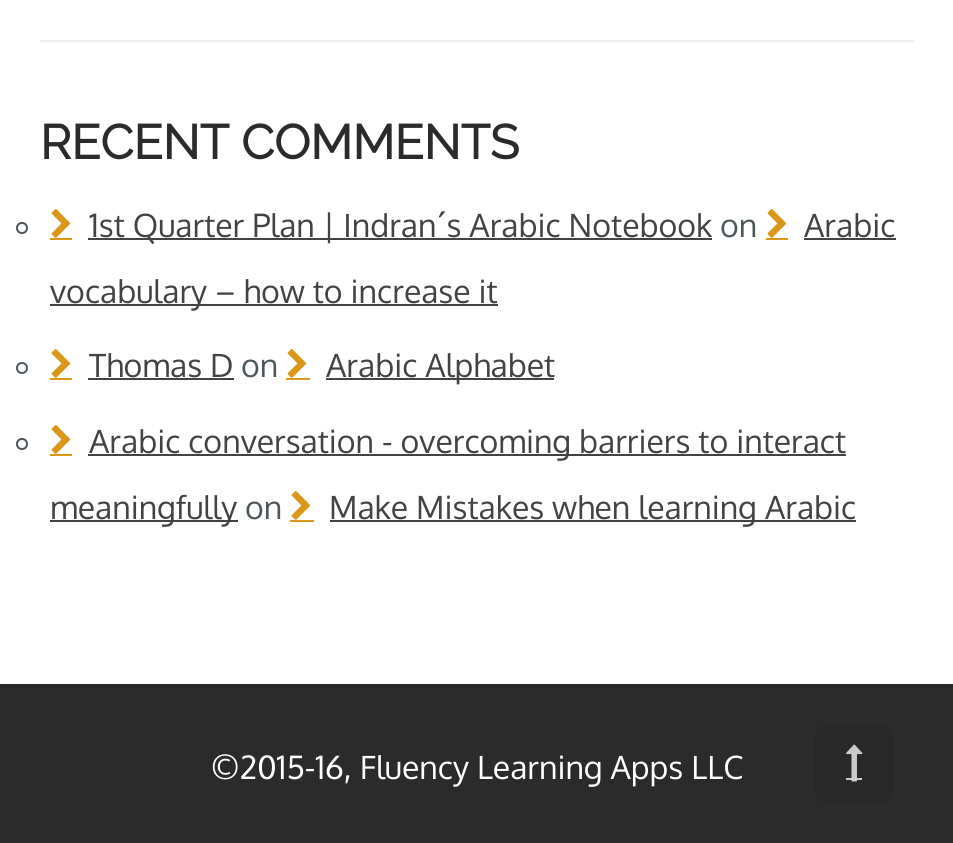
#include <cairo.h>
#include <math.h>
#include <stddef.h>

static cairo_t *ctx;

static void use_color(int r, int g, int b) {
    cairo_set_source_rgb(ctx, r / 255.0, g / 255.0, b / 255.0);
}

static void round_rect(double x, double y, double w, double h, double r) {
    cairo_new_sub_path(ctx);
    cairo_arc(ctx, x + w - r, y + h - r, r, 0, M_PI / 2);
    cairo_arc(ctx, x + r, y + h - r, r, M_PI / 2, M_PI);
    cairo_arc(ctx, x + r, y + r, r, M_PI, 1.5 * M_PI);
    cairo_arc(ctx, x + w - r, y + r, r, 1.5 * M_PI, 2 * M_PI);
    cairo_close_path(ctx);
}

static void picture(const char *path, double x, double y, double w, double h) {
    cairo_surface_t *image = cairo_image_surface_create_from_png(path);
    cairo_save(ctx);
    cairo_set_source_surface(ctx, image, x, y);
    cairo_rectangle(ctx, x, y, w, h);
    cairo_fill(ctx);
    cairo_restore(ctx);
    cairo_surface_destroy(image);
}

int main(void) {
    cairo_surface_t *surface = cairo_image_surface_create(CAIRO_FORMAT_RGB24, 953, 843);
    ctx = cairo_create(surface);
    cairo_font_options_t *options = cairo_font_options_create();
    cairo_font_options_set_hint_metrics(options, CAIRO_HINT_METRICS_OFF);
    cairo_font_options_set_hint_style(options, CAIRO_HINT_STYLE_NONE);
    cairo_set_font_options(ctx, options);
    cairo_set_miter_limit(ctx, 4);
    use_color(255, 255, 255);
    cairo_paint(ctx);
    use_color(239, 239, 239);
    cairo_rectangle(ctx, 40, 40, 874, 2);
    cairo_fill(ctx);
    cairo_select_font_face(ctx, "Raleway", CAIRO_FONT_SLANT_NORMAL, CAIRO_FONT_WEIGHT_BOLD);
    cairo_set_font_size(ctx, 48);
    use_color(43, 43, 43);
    cairo_move_to(ctx, 40, 159);
    cairo_show_text(ctx, "RECENT COMMENTS");
    use_color(219, 151, 26);
    cairo_rectangle(ctx, 50, 238, 22, 2);
    cairo_fill(ctx);
    picture("img1.png", 51, 209, 20, 29);
    use_color(67, 67, 67);
    cairo_rectangle(ctx, 88, 238, 624, 2);
    cairo_fill(ctx);
    cairo_select_font_face(ctx, "Oxygen", CAIRO_FONT_SLANT_NORMAL, CAIRO_FONT_WEIGHT_NORMAL);
    cairo_set_font_size(ctx, 32);
    cairo_move_to(ctx, 89, 237);
    cairo_show_text(ctx, "1st Quarter Plan | Indran´s Arabic Notebook");
    use_color(219, 151, 26);
    cairo_rectangle(ctx, 766, 238, 22, 2);
    cairo_fill(ctx);
    picture("img1.png", 767, 209, 20, 29);
    use_color(67, 67, 67);
    cairo_move_to(ctx, 804, 237);
    cairo_show_text(ctx, "Arabic");
    cairo_rectangle(ctx, 804, 238, 92, 2);
    cairo_fill(ctx);
    cairo_rectangle(ctx, 50, 304, 448, 2);
    cairo_fill(ctx);
    cairo_move_to(ctx, 50, 303);
    cairo_show_text(ctx, "vocabulary – how to increase it");
    cairo_new_path(ctx);
    cairo_arc(ctx, 22, 228, 5, 0, 2 * M_PI);
    use_color(76, 88, 92);
    cairo_stroke(ctx);
    cairo_move_to(ctx, 720, 237);
    cairo_show_text(ctx, "on");
    cairo_new_path(ctx);
    cairo_arc(ctx, 22, 368, 5, 0, 2 * M_PI);
    cairo_stroke(ctx);
    use_color(219, 151, 26);
    cairo_rectangle(ctx, 50, 378, 22, 2);
    cairo_fill(ctx);
    picture("img1.png", 51, 349, 20, 29);
    use_color(67, 67, 67);
    cairo_move_to(ctx, 89, 377);
    cairo_show_text(ctx, "Thomas D");
    cairo_rectangle(ctx, 88, 378, 146, 2);
    cairo_fill(ctx);
    use_color(76, 88, 92);
    cairo_move_to(ctx, 241, 377);
    cairo_show_text(ctx, "on");
    use_color(219, 151, 26);
    cairo_rectangle(ctx, 286, 378, 24, 2);
    cairo_fill(ctx);
    picture("img1.png", 287, 349, 20, 29);
    use_color(67, 67, 67);
    cairo_rectangle(ctx, 326, 378, 228, 2);
    cairo_fill(ctx);
    cairo_move_to(ctx, 326, 377);
    cairo_show_text(ctx, "Arabic Alphabet");
    cairo_new_path(ctx);
    cairo_arc(ctx, 22, 444, 5, 0, 2 * M_PI);
    use_color(76, 88, 92);
    cairo_stroke(ctx);
    use_color(219, 151, 26);
    cairo_rectangle(ctx, 50, 454, 22, 2);
    cairo_fill(ctx);
    picture("img1.png", 51, 425, 20, 29);
    use_color(67, 67, 67);
    cairo_rectangle(ctx, 88, 454, 758, 2);
    cairo_fill(ctx);
    cairo_move_to(ctx, 89, 453);
    cairo_show_text(ctx, "Arabic conversation - overcoming barriers to interact");
    cairo_rectangle(ctx, 50, 520, 188, 2);
    cairo_fill(ctx);
    cairo_move_to(ctx, 50, 519);
    cairo_show_text(ctx, "meaningfully");
    use_color(76, 88, 92);
    cairo_move_to(ctx, 245, 519);
    cairo_show_text(ctx, "on");
    use_color(219, 151, 26);
    cairo_rectangle(ctx, 290, 520, 24, 2);
    cairo_fill(ctx);
    picture("img1.png", 291, 491, 20, 29);
    use_color(67, 67, 67);
    cairo_rectangle(ctx, 330, 520, 526, 2);
    cairo_fill(ctx);
    cairo_move_to(ctx, 329, 519);
    cairo_show_text(ctx, "Make Mistakes when learning Arabic");
    use_color(43, 43, 43);
    cairo_rectangle(ctx, 0, 688, 953, 155);
    cairo_fill(ctx);
    use_color(39, 39, 39);
    cairo_rectangle(ctx, 0, 684, 953, 4);
    cairo_fill(ctx);
    use_color(255, 255, 255);
    cairo_move_to(ctx, 211, 779);
    cairo_show_text(ctx, "©2015-16, Fluency Learning Apps LLC");
    use_color(40, 40, 40);
    round_rect(814, 724, 80, 80, 14);
    cairo_fill(ctx);
    use_color(203, 203, 203);
    cairo_rectangle(ctx, 846, 778, 16, 2);
    cairo_fill(ctx);
    picture("img2.png", 846, 744, 17, 38);
    cairo_surface_write_to_png(surface, "result.png");
    cairo_font_options_destroy(options);
    cairo_destroy(ctx);
    cairo_surface_destroy(surface);
    return 0;
}
